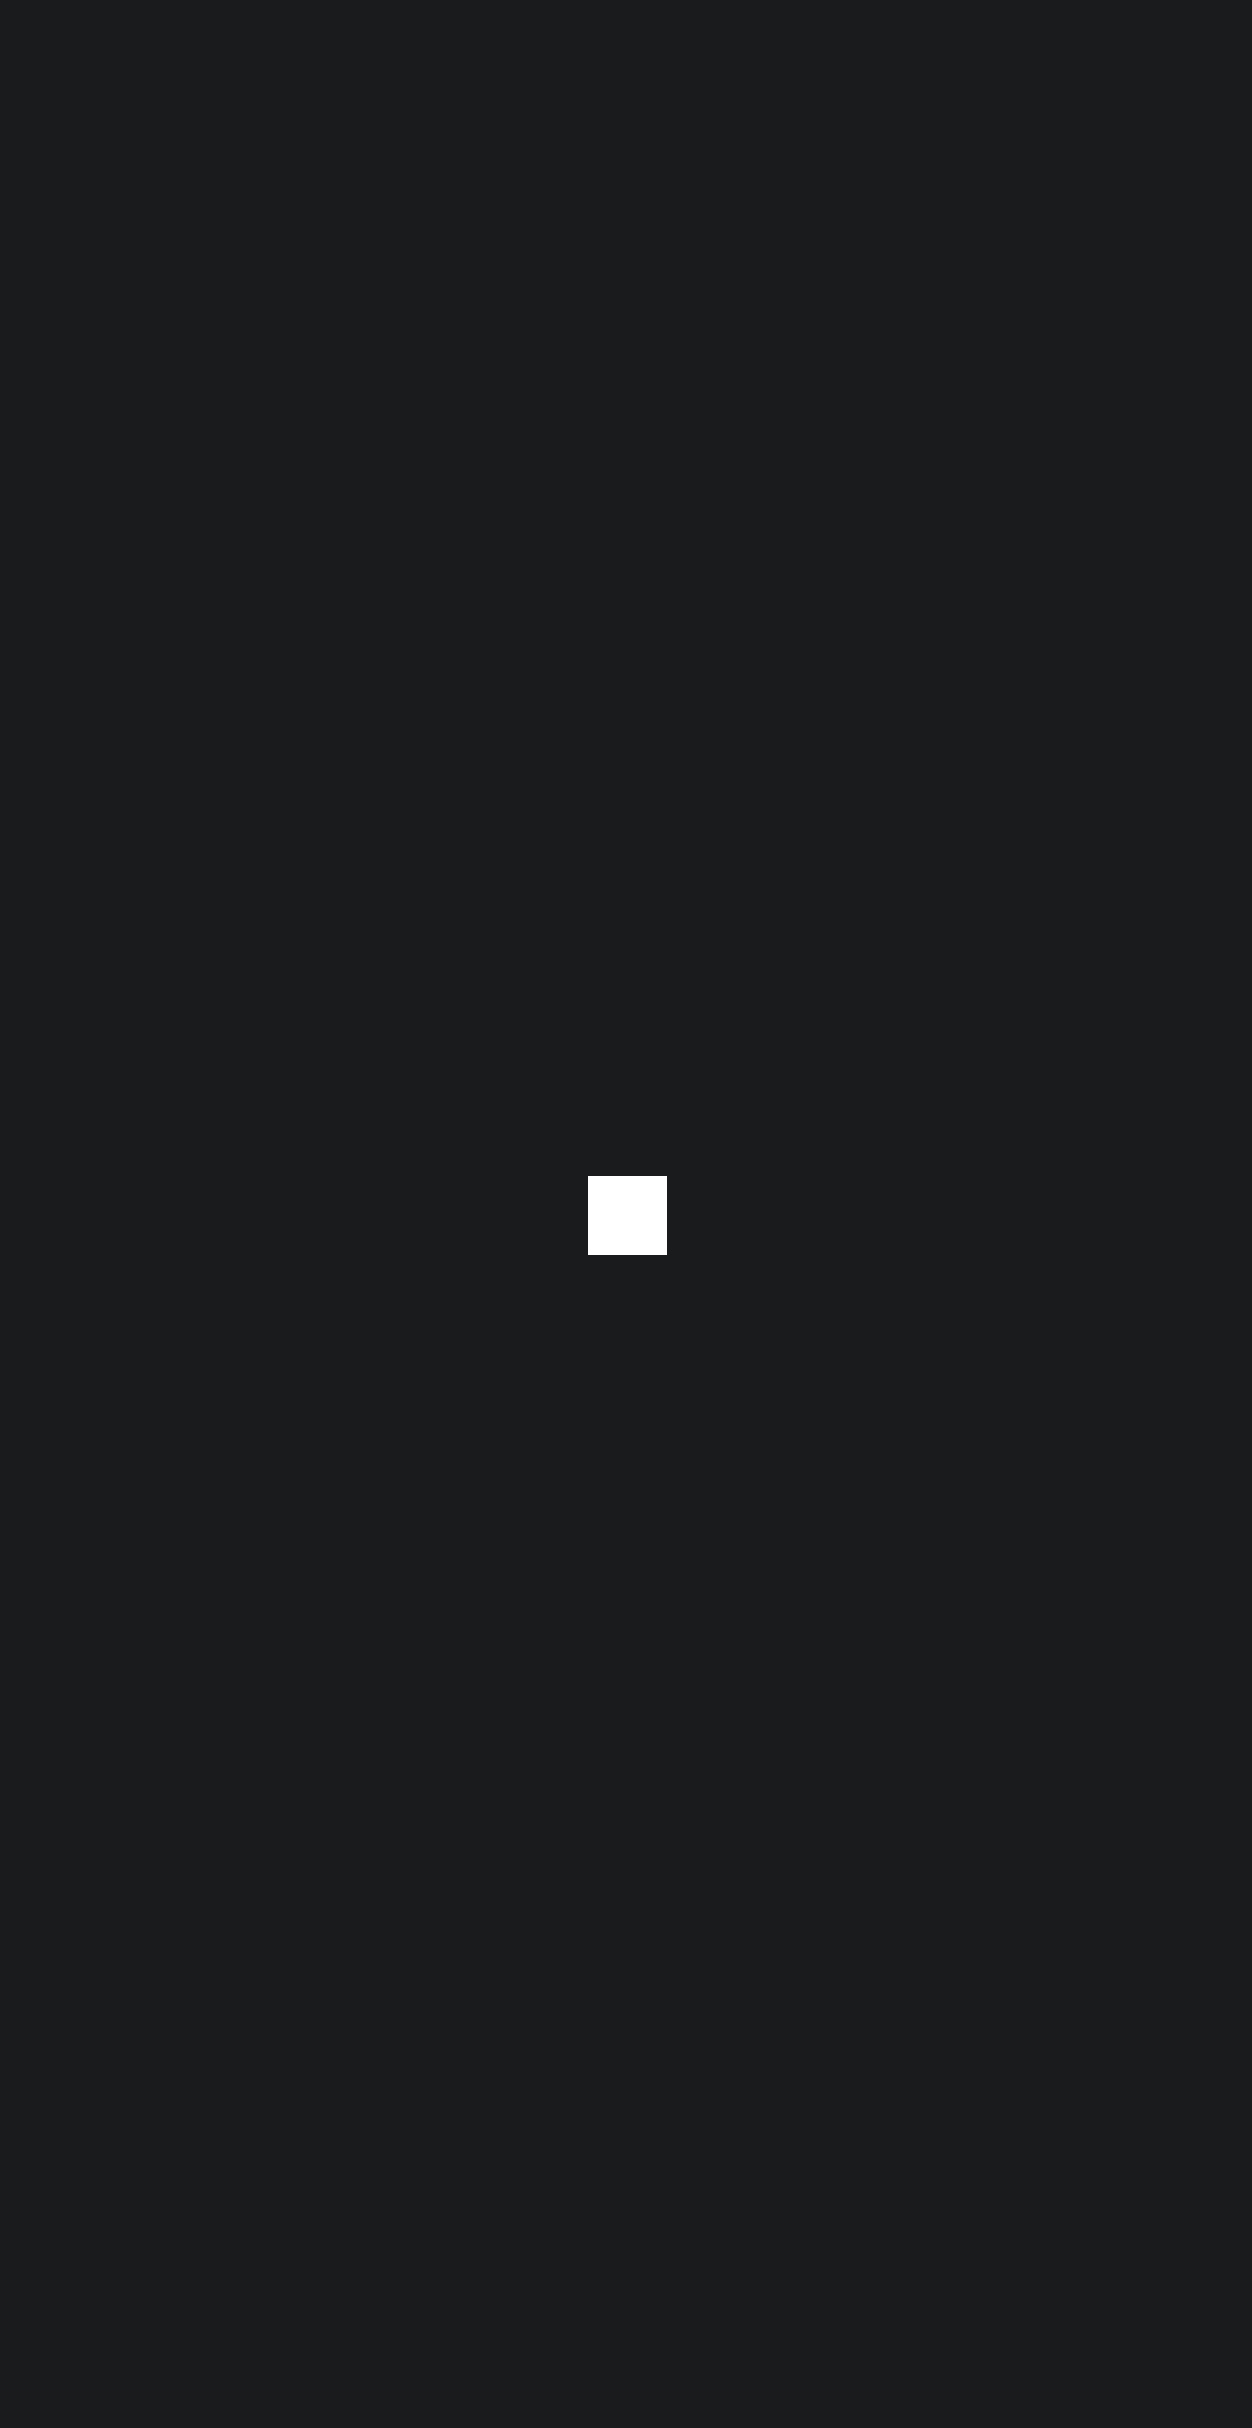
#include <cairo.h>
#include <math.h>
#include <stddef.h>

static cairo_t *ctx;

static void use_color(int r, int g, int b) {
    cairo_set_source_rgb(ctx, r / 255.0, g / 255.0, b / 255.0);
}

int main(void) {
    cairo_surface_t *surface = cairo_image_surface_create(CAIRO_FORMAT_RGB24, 1252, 2428);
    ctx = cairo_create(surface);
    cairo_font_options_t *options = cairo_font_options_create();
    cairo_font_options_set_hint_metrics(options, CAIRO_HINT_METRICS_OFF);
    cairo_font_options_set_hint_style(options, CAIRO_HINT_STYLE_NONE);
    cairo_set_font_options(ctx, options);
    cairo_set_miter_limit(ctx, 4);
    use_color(25, 27, 29);
    cairo_paint(ctx);
    use_color(255, 255, 255);
    cairo_rectangle(ctx, 588, 1176, 79, 79);
    cairo_fill(ctx);
    cairo_surface_write_to_png(surface, "result.png");
    cairo_font_options_destroy(options);
    cairo_destroy(ctx);
    cairo_surface_destroy(surface);
    return 0;
}
